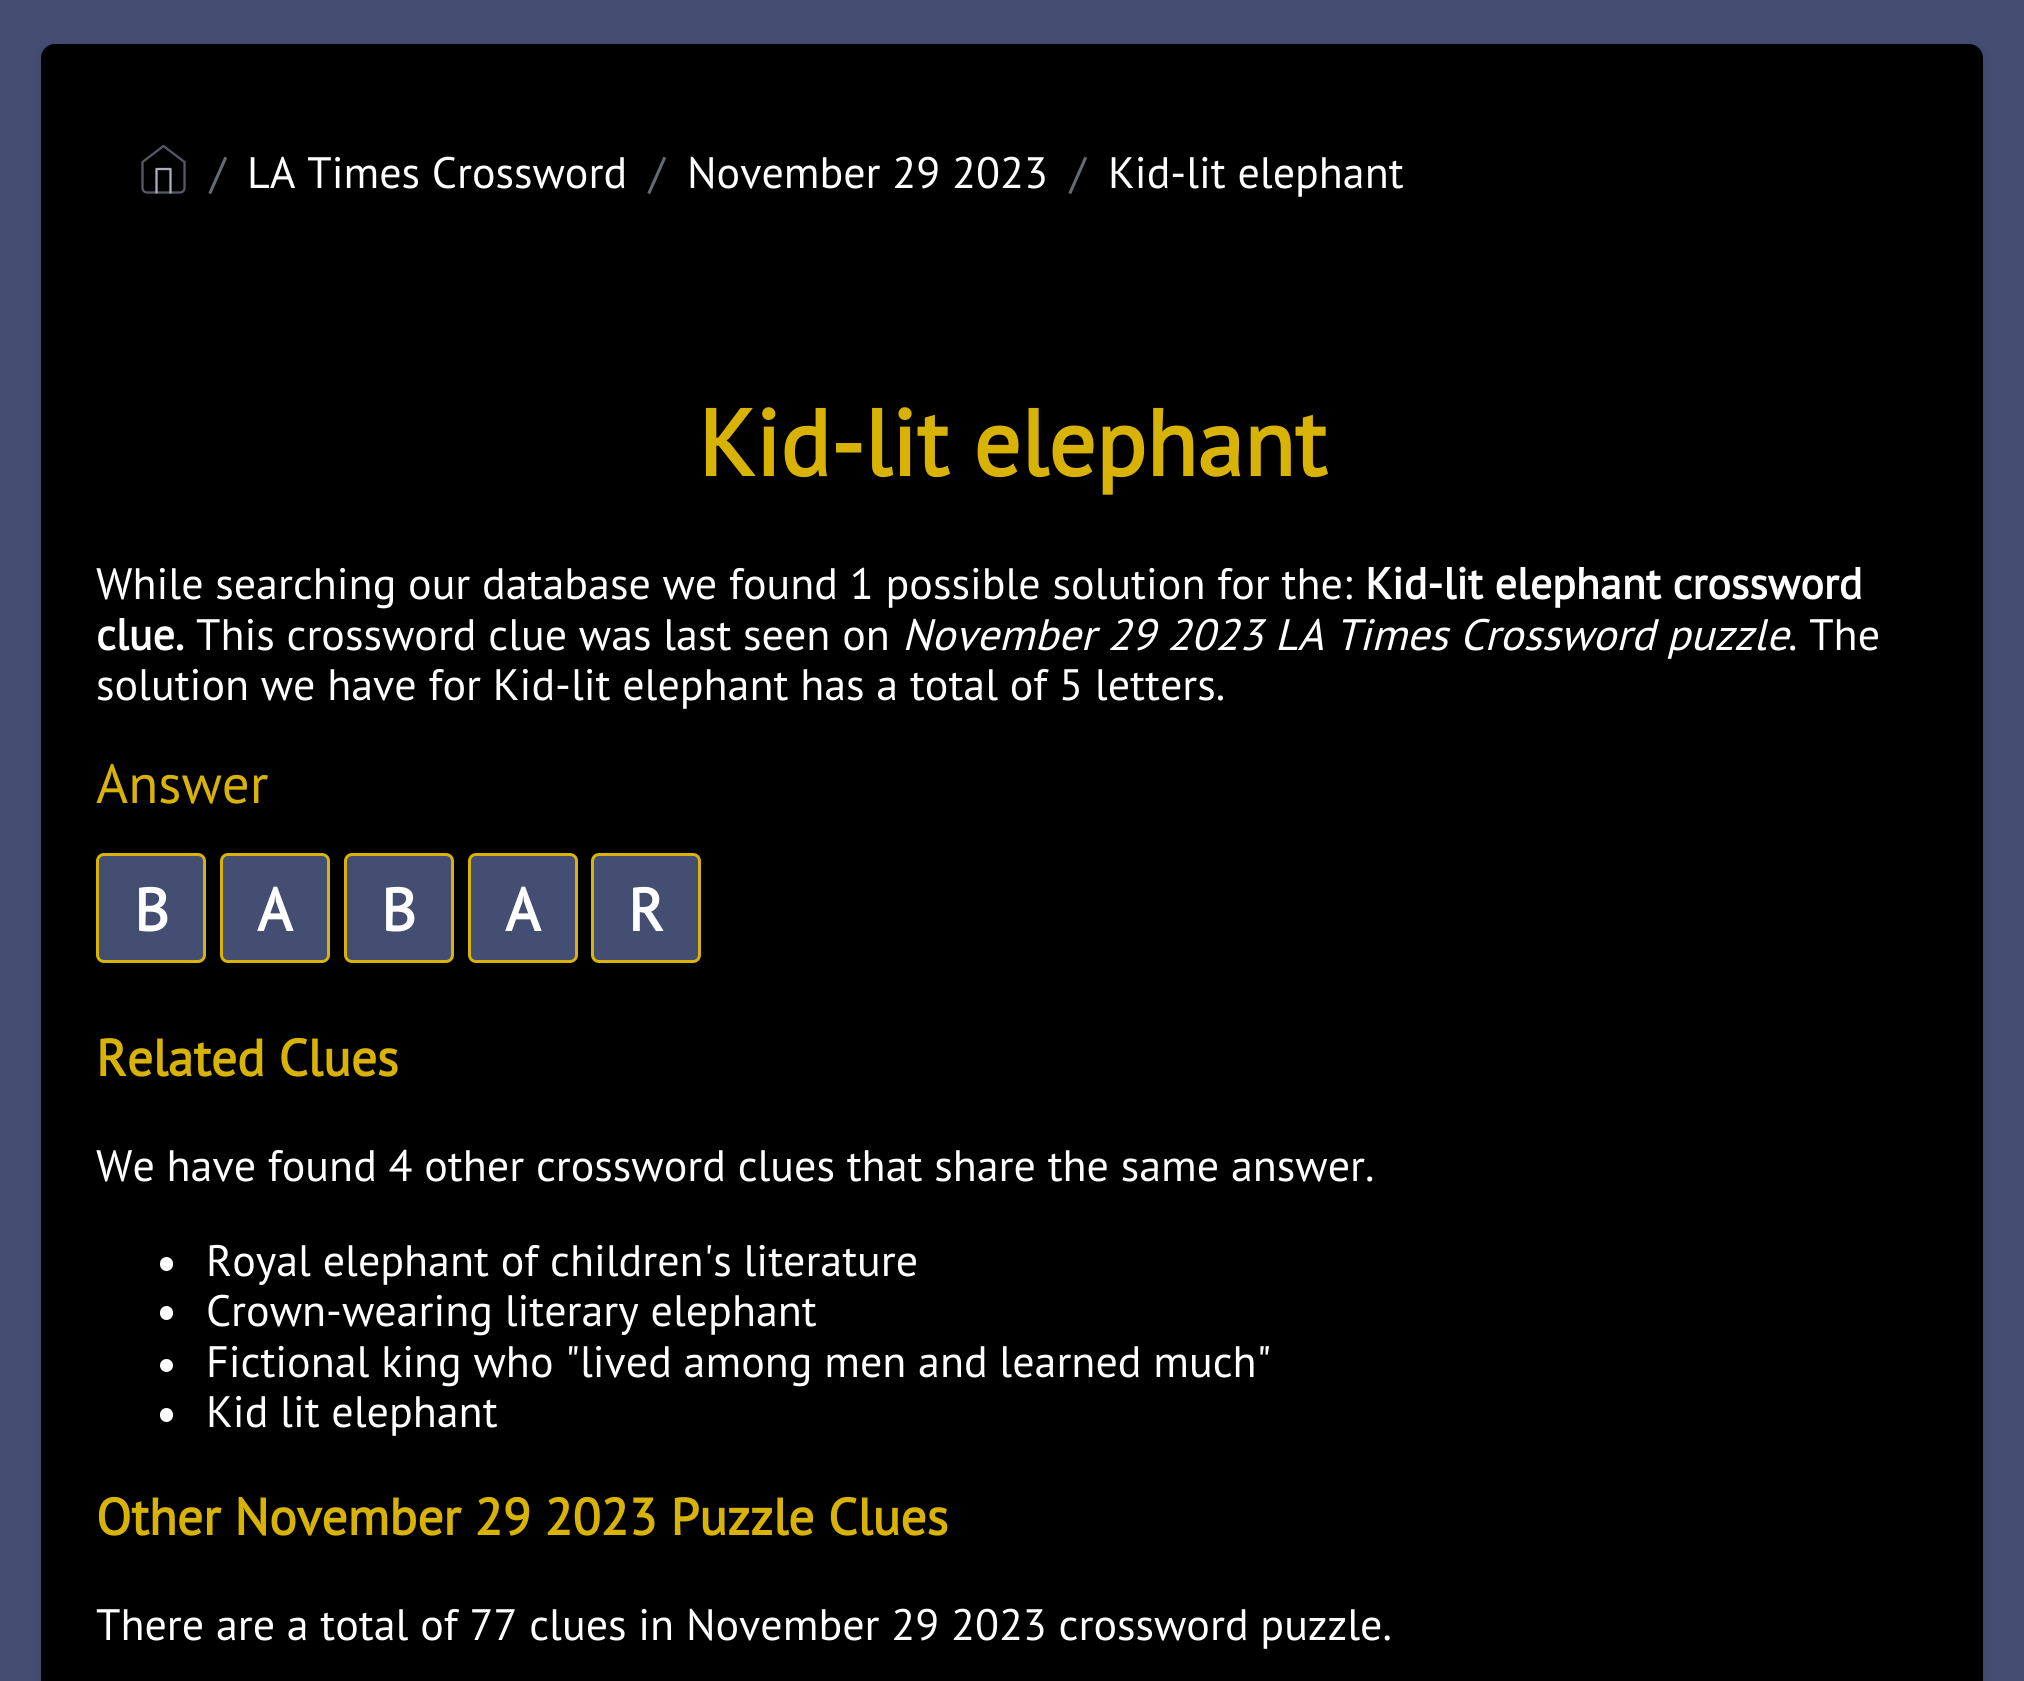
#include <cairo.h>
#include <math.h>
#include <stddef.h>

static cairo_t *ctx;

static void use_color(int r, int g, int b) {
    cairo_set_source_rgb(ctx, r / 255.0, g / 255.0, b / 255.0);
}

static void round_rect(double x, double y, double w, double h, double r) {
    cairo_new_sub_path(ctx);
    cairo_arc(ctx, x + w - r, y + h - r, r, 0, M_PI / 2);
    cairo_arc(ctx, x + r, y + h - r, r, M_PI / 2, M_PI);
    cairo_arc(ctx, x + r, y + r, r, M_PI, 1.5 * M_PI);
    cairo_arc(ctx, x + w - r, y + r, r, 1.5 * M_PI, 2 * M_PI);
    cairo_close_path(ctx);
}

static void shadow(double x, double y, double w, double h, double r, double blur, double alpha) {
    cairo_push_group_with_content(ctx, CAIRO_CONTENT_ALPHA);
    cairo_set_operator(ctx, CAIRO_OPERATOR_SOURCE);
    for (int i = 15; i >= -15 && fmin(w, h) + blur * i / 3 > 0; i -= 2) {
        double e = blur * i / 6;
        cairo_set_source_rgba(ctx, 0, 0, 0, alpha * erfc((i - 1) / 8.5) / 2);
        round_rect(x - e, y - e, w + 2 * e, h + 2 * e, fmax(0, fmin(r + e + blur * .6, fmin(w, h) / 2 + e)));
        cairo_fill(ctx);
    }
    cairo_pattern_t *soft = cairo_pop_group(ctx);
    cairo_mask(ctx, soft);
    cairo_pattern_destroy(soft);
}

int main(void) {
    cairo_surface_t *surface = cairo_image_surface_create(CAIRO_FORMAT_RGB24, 2024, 1681);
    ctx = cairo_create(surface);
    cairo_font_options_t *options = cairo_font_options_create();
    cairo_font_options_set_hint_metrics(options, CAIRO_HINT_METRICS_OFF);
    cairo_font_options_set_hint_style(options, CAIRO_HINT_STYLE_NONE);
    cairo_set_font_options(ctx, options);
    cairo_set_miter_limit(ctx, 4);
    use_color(68, 77, 114);
    cairo_paint(ctx);
    use_color(0, 0, 0);
    shadow(41, 47, 1942, 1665, 14, 5.5, 0.1);
    use_color(0, 0, 0);
    round_rect(41, 44, 1942, 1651, 14);
    cairo_fill(ctx);
    cairo_new_path(ctx);
    cairo_move_to(ctx, 142.5, 162);
    cairo_line_to(ctx, 163.5, 146);
    cairo_line_to(ctx, 184.5, 162);
    cairo_line_to(ctx, 184.5, 188);
    cairo_curve_to(ctx, 184.5, 190.5, 182.5, 192.5, 180, 192.5);
    cairo_line_to(ctx, 147.5, 192.5);
    cairo_curve_to(ctx, 144.5, 192.5, 142.5, 190.5, 142.5, 188);
    cairo_close_path(ctx);
    use_color(86, 89, 100);
    cairo_set_line_width(ctx, 2.3);
    cairo_set_line_cap(ctx, CAIRO_LINE_CAP_ROUND);
    cairo_set_line_join(ctx, CAIRO_LINE_JOIN_ROUND);
    cairo_stroke(ctx);
    cairo_new_path(ctx);
    cairo_move_to(ctx, 156.5, 192.5);
    cairo_line_to(ctx, 156.5, 169);
    cairo_line_to(ctx, 170.5, 169);
    cairo_line_to(ctx, 170.5, 192.5);
    use_color(169, 173, 188);
    cairo_stroke(ctx);
    cairo_select_font_face(ctx, "PT Sans", CAIRO_FONT_SLANT_NORMAL, CAIRO_FONT_WEIGHT_NORMAL);
    cairo_set_font_size(ctx, 44);
    use_color(99, 108, 114);
    cairo_move_to(ctx, 210, 188);
    cairo_show_text(ctx, "/");
    use_color(255, 255, 255);
    cairo_move_to(ctx, 247, 188);
    cairo_show_text(ctx, "LA Times Crossword");
    use_color(99, 108, 114);
    cairo_move_to(ctx, 649, 188);
    cairo_show_text(ctx, "/");
    use_color(255, 255, 255);
    cairo_move_to(ctx, 687, 188);
    cairo_show_text(ctx, "November 29 2023");
    use_color(99, 108, 114);
    cairo_move_to(ctx, 1070, 188);
    cairo_show_text(ctx, "/");
    use_color(255, 255, 255);
    cairo_move_to(ctx, 1108, 188);
    cairo_show_text(ctx, "Kid-lit elephant");
    cairo_select_font_face(ctx, "PT Sans", CAIRO_FONT_SLANT_NORMAL, CAIRO_FONT_WEIGHT_BOLD);
    cairo_set_font_size(ctx, 93.5);
    use_color(216, 179, 6);
    cairo_move_to(ctx, 698, 476);
    cairo_show_text(ctx, "Kid-lit elephant");
    cairo_select_font_face(ctx, "PT Sans", CAIRO_FONT_SLANT_NORMAL, CAIRO_FONT_WEIGHT_NORMAL);
    cairo_set_font_size(ctx, 44);
    use_color(255, 255, 255);
    cairo_move_to(ctx, 96, 599);
    cairo_show_text(ctx, "While searching our database we found 1 possible solution for the:");
    cairo_select_font_face(ctx, "PT Sans", CAIRO_FONT_SLANT_NORMAL, CAIRO_FONT_WEIGHT_BOLD);
    cairo_move_to(ctx, 1365, 599);
    cairo_show_text(ctx, "Kid-lit elephant crossword");
    cairo_move_to(ctx, 96, 650);
    cairo_show_text(ctx, "clue.");
    cairo_select_font_face(ctx, "PT Sans", CAIRO_FONT_SLANT_NORMAL, CAIRO_FONT_WEIGHT_NORMAL);
    cairo_move_to(ctx, 196, 650);
    cairo_show_text(ctx, "This crossword clue was last seen on");
    cairo_select_font_face(ctx, "PT Sans", CAIRO_FONT_SLANT_ITALIC, CAIRO_FONT_WEIGHT_NORMAL);
    cairo_move_to(ctx, 902, 650);
    cairo_show_text(ctx, "November 29 2023 LA Times Crossword puzzle");
    cairo_select_font_face(ctx, "PT Sans", CAIRO_FONT_SLANT_NORMAL, CAIRO_FONT_WEIGHT_NORMAL);
    cairo_move_to(ctx, 1788, 650);
    cairo_show_text(ctx, ". The");
    cairo_move_to(ctx, 96, 700);
    cairo_show_text(ctx, "solution we have for Kid-lit elephant has a total of 5 letters.");
    cairo_set_font_size(ctx, 55);
    use_color(216, 179, 6);
    cairo_move_to(ctx, 96, 803);
    cairo_show_text(ctx, "Answer");
    use_color(68, 77, 114);
    round_rect(97.5, 854.5, 107, 107, 6.5);
    cairo_fill_preserve(ctx);
    use_color(217, 180, 6);
    cairo_set_line_width(ctx, 3);
    cairo_set_line_cap(ctx, CAIRO_LINE_CAP_BUTT);
    cairo_set_line_join(ctx, CAIRO_LINE_JOIN_MITER);
    cairo_stroke(ctx);
    cairo_select_font_face(ctx, "PT Sans", CAIRO_FONT_SLANT_NORMAL, CAIRO_FONT_WEIGHT_BOLD);
    cairo_set_font_size(ctx, 60);
    use_color(255, 255, 255);
    cairo_move_to(ctx, 134, 931);
    cairo_show_text(ctx, "B");
    use_color(68, 77, 114);
    round_rect(221.5, 854.5, 107, 107, 6.5);
    cairo_fill_preserve(ctx);
    use_color(217, 180, 6);
    cairo_stroke(ctx);
    use_color(255, 255, 255);
    cairo_move_to(ctx, 257, 931);
    cairo_show_text(ctx, "A");
    use_color(68, 77, 114);
    round_rect(345.5, 854.5, 107, 107, 6.5);
    cairo_fill_preserve(ctx);
    use_color(217, 180, 6);
    cairo_stroke(ctx);
    use_color(255, 255, 255);
    cairo_move_to(ctx, 381, 931);
    cairo_show_text(ctx, "B");
    use_color(68, 77, 114);
    round_rect(469.5, 854.5, 107, 107, 6.5);
    cairo_fill_preserve(ctx);
    use_color(217, 180, 6);
    cairo_stroke(ctx);
    use_color(255, 255, 255);
    cairo_move_to(ctx, 505, 931);
    cairo_show_text(ctx, "A");
    use_color(68, 77, 114);
    round_rect(592.5, 854.5, 107, 107, 6.5);
    cairo_fill_preserve(ctx);
    use_color(217, 180, 6);
    cairo_stroke(ctx);
    use_color(255, 255, 255);
    cairo_move_to(ctx, 628, 931);
    cairo_show_text(ctx, "R");
    cairo_set_font_size(ctx, 51.5);
    use_color(216, 179, 6);
    cairo_move_to(ctx, 96, 1076);
    cairo_show_text(ctx, "Related Clues");
    cairo_select_font_face(ctx, "PT Sans", CAIRO_FONT_SLANT_NORMAL, CAIRO_FONT_WEIGHT_NORMAL);
    cairo_set_font_size(ctx, 44);
    use_color(255, 255, 255);
    cairo_move_to(ctx, 96, 1181);
    cairo_show_text(ctx, "We have found 4 other crossword clues that share the same answer.");
    round_rect(160, 1257, 13, 14, 6.5);
    cairo_fill(ctx);
    cairo_move_to(ctx, 206, 1276);
    cairo_show_text(ctx, "Royal elephant of children's literature");
    round_rect(160, 1306, 13, 14, 6.5);
    cairo_fill(ctx);
    cairo_move_to(ctx, 206, 1326);
    cairo_show_text(ctx, "Crown-wearing literary elephant");
    cairo_new_path(ctx);
    cairo_arc(ctx, 166.5, 1365.5, 6.5, 0, 2 * M_PI);
    cairo_fill(ctx);
    cairo_move_to(ctx, 206, 1377);
    cairo_show_text(ctx, "Fictional king who \"lived among men and learned much\"");
    round_rect(160, 1408, 13, 14, 6.5);
    cairo_fill(ctx);
    cairo_move_to(ctx, 206, 1427);
    cairo_show_text(ctx, "Kid lit elephant");
    cairo_select_font_face(ctx, "PT Sans", CAIRO_FONT_SLANT_NORMAL, CAIRO_FONT_WEIGHT_BOLD);
    cairo_set_font_size(ctx, 51.5);
    use_color(216, 179, 6);
    cairo_move_to(ctx, 96, 1535);
    cairo_show_text(ctx, "Other November 29 2023 Puzzle Clues");
    cairo_select_font_face(ctx, "PT Sans", CAIRO_FONT_SLANT_NORMAL, CAIRO_FONT_WEIGHT_NORMAL);
    cairo_set_font_size(ctx, 44);
    use_color(255, 255, 255);
    cairo_move_to(ctx, 96, 1640);
    cairo_show_text(ctx, "There are a total of 77 clues in November 29 2023 crossword puzzle.");
    cairo_surface_write_to_png(surface, "result.png");
    cairo_font_options_destroy(options);
    cairo_destroy(ctx);
    cairo_surface_destroy(surface);
    return 0;
}
